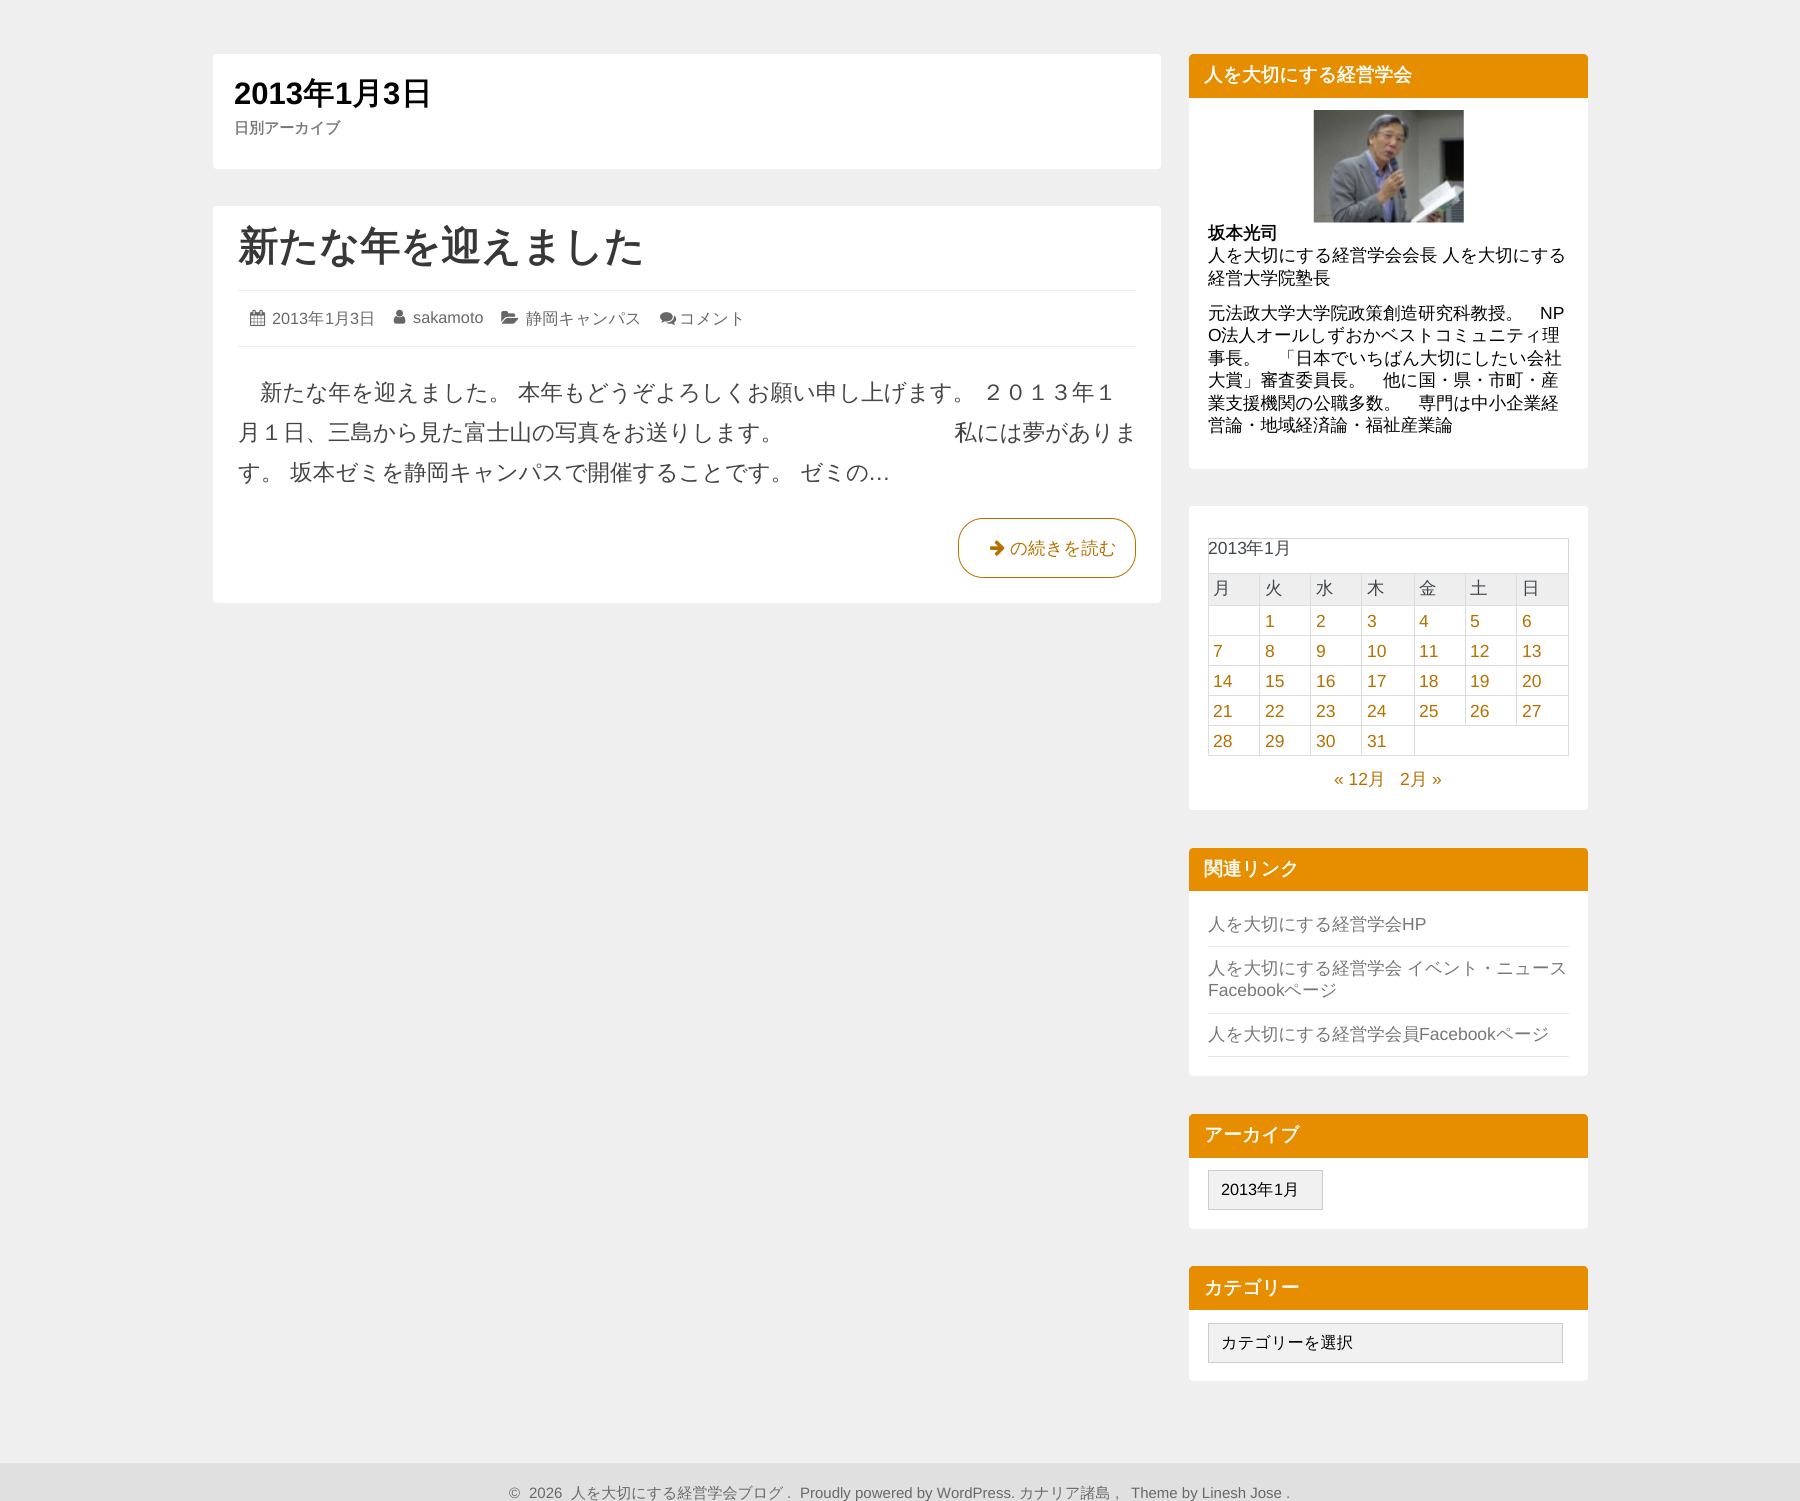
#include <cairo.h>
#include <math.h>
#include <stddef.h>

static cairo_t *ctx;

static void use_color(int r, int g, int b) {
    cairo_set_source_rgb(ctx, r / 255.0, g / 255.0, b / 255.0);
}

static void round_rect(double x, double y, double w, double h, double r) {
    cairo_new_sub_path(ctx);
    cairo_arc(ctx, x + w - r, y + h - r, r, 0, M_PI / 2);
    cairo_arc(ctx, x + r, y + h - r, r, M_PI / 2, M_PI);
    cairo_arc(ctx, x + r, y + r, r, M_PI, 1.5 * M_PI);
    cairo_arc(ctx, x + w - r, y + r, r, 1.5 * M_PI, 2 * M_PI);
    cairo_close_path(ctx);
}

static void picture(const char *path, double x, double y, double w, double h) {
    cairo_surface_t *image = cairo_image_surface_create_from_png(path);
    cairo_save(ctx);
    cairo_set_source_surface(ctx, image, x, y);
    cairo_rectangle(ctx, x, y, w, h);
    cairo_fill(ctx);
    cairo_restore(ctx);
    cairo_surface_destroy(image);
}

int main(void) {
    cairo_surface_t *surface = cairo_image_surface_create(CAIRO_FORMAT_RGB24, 1800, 1501);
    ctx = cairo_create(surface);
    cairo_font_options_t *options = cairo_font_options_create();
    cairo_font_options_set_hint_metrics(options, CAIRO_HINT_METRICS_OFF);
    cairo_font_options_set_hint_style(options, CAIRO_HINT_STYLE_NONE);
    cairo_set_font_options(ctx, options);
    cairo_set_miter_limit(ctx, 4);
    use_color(239, 239, 239);
    cairo_paint(ctx);
    use_color(255, 255, 255);
    round_rect(213, 54, 948, 115, 4);
    cairo_fill(ctx);
    cairo_select_font_face(ctx, "Liberation Sans", CAIRO_FONT_SLANT_NORMAL, CAIRO_FONT_WEIGHT_BOLD);
    cairo_set_font_size(ctx, 31);
    use_color(0, 0, 0);
    cairo_move_to(ctx, 234, 104);
    cairo_show_text(ctx, "2013");
    cairo_select_font_face(ctx, "WenQuanYi Zen Hei", CAIRO_FONT_SLANT_NORMAL, CAIRO_FONT_WEIGHT_BOLD);
    cairo_move_to(ctx, 303, 104);
    cairo_show_text(ctx, "年");
    cairo_select_font_face(ctx, "Liberation Sans", CAIRO_FONT_SLANT_NORMAL, CAIRO_FONT_WEIGHT_BOLD);
    cairo_move_to(ctx, 335, 104);
    cairo_show_text(ctx, "1");
    cairo_select_font_face(ctx, "WenQuanYi Zen Hei", CAIRO_FONT_SLANT_NORMAL, CAIRO_FONT_WEIGHT_BOLD);
    cairo_move_to(ctx, 352, 104);
    cairo_show_text(ctx, "月");
    cairo_select_font_face(ctx, "Liberation Sans", CAIRO_FONT_SLANT_NORMAL, CAIRO_FONT_WEIGHT_BOLD);
    cairo_move_to(ctx, 383, 104);
    cairo_show_text(ctx, "3");
    cairo_select_font_face(ctx, "WenQuanYi Zen Hei", CAIRO_FONT_SLANT_NORMAL, CAIRO_FONT_WEIGHT_BOLD);
    cairo_move_to(ctx, 401, 104);
    cairo_show_text(ctx, "日");
    cairo_set_font_size(ctx, 15);
    use_color(119, 119, 119);
    cairo_move_to(ctx, 234, 133);
    cairo_show_text(ctx, "日別アーカイブ");
    use_color(255, 255, 255);
    round_rect(213, 206, 948, 397, 4);
    cairo_fill(ctx);
    cairo_set_font_size(ctx, 40);
    use_color(55, 55, 55);
    cairo_move_to(ctx, 238, 260);
    cairo_show_text(ctx, "新たな年を迎えました");
    use_color(238, 238, 238);
    cairo_rectangle(ctx, 238, 290, 898, 1);
    cairo_fill(ctx);
    cairo_rectangle(ctx, 238, 346, 898, 1);
    cairo_fill(ctx);
    picture("img1.png", 250, 309, 16, 18);
    cairo_select_font_face(ctx, "Liberation Sans", CAIRO_FONT_SLANT_NORMAL, CAIRO_FONT_WEIGHT_NORMAL);
    cairo_set_font_size(ctx, 16.25);
    use_color(104, 104, 104);
    cairo_move_to(ctx, 272, 324);
    cairo_show_text(ctx, "2013");
    cairo_select_font_face(ctx, "WenQuanYi Zen Hei Medium", CAIRO_FONT_SLANT_NORMAL, CAIRO_FONT_WEIGHT_NORMAL);
    cairo_move_to(ctx, 308, 324);
    cairo_show_text(ctx, "年");
    cairo_select_font_face(ctx, "Liberation Sans", CAIRO_FONT_SLANT_NORMAL, CAIRO_FONT_WEIGHT_NORMAL);
    cairo_move_to(ctx, 325, 324);
    cairo_show_text(ctx, "1");
    cairo_select_font_face(ctx, "WenQuanYi Zen Hei Medium", CAIRO_FONT_SLANT_NORMAL, CAIRO_FONT_WEIGHT_NORMAL);
    cairo_move_to(ctx, 334, 324);
    cairo_show_text(ctx, "月");
    cairo_select_font_face(ctx, "Liberation Sans", CAIRO_FONT_SLANT_NORMAL, CAIRO_FONT_WEIGHT_NORMAL);
    cairo_move_to(ctx, 350, 324);
    cairo_show_text(ctx, "3");
    cairo_select_font_face(ctx, "WenQuanYi Zen Hei Medium", CAIRO_FONT_SLANT_NORMAL, CAIRO_FONT_WEIGHT_NORMAL);
    cairo_move_to(ctx, 359, 324);
    cairo_show_text(ctx, "日");
    picture("img2.png", 393, 309, 13, 15);
    cairo_select_font_face(ctx, "Liberation Sans", CAIRO_FONT_SLANT_NORMAL, CAIRO_FONT_WEIGHT_NORMAL);
    cairo_move_to(ctx, 413, 323);
    cairo_show_text(ctx, "sakamoto");
    picture("img3.png", 501, 311, 18, 13);
    cairo_select_font_face(ctx, "WenQuanYi Zen Hei Medium", CAIRO_FONT_SLANT_NORMAL, CAIRO_FONT_WEIGHT_NORMAL);
    cairo_move_to(ctx, 526, 324);
    cairo_show_text(ctx, "静岡キャンパス");
    picture("img4.png", 660, 312, 17, 13);
    cairo_move_to(ctx, 679, 324);
    cairo_show_text(ctx, "コメント");
    cairo_set_font_size(ctx, 22.5);
    use_color(68, 68, 68);
    cairo_move_to(ctx, 260, 400);
    cairo_show_text(ctx, "新たな年を迎えました。 本年もどうぞよろしくお願い申し上げます。 ２０１３年１");
    cairo_move_to(ctx, 238, 440);
    cairo_show_text(ctx, "月１日、三島から見た富士山の写真をお送りします。 　　　　　　 　私には夢がありま");
    cairo_move_to(ctx, 238, 480);
    cairo_show_text(ctx, "す。 坂本ゼミを静岡キャンパスで開催することです。 ゼミの");
    cairo_select_font_face(ctx, "Liberation Sans", CAIRO_FONT_SLANT_NORMAL, CAIRO_FONT_WEIGHT_NORMAL);
    cairo_move_to(ctx, 868, 480);
    cairo_show_text(ctx, "…");
    round_rect(958.5, 518.5, 177, 59, 24.5);
    use_color(181, 112, 0);
    cairo_set_line_width(ctx, 1);
    cairo_stroke(ctx);
    picture("img5.png", 990, 540, 15, 16);
    cairo_select_font_face(ctx, "WenQuanYi Zen Hei Medium", CAIRO_FONT_SLANT_NORMAL, CAIRO_FONT_WEIGHT_NORMAL);
    cairo_set_font_size(ctx, 17.5);
    cairo_move_to(ctx, 1010, 554);
    cairo_show_text(ctx, "の続きを読む");
    use_color(255, 255, 255);
    round_rect(1189, 54, 399, 415, 4);
    cairo_fill(ctx);
    use_color(230, 142, 0);
    cairo_new_path(ctx);
    cairo_move_to(ctx, 1193, 54);
    cairo_line_to(ctx, 1584, 54);
    cairo_curve_to(ctx, 1586, 54, 1588, 56, 1588, 58);
    cairo_line_to(ctx, 1588, 98);
    cairo_line_to(ctx, 1189, 98);
    cairo_line_to(ctx, 1189, 58);
    cairo_curve_to(ctx, 1189, 56, 1191, 54, 1193, 54);
    cairo_close_path(ctx);
    cairo_fill(ctx);
    cairo_select_font_face(ctx, "WenQuanYi Zen Hei", CAIRO_FONT_SLANT_NORMAL, CAIRO_FONT_WEIGHT_BOLD);
    cairo_set_font_size(ctx, 18.75);
    use_color(255, 255, 255);
    cairo_move_to(ctx, 1204, 81);
    cairo_show_text(ctx, "人を大切にする経営学会");
    picture("img6.png", 1313, 110, 151, 113);
    cairo_set_font_size(ctx, 17.5);
    use_color(0, 0, 0);
    cairo_move_to(ctx, 1208, 239);
    cairo_show_text(ctx, "坂本光司");
    cairo_select_font_face(ctx, "WenQuanYi Zen Hei Medium", CAIRO_FONT_SLANT_NORMAL, CAIRO_FONT_WEIGHT_NORMAL);
    cairo_move_to(ctx, 1208, 261);
    cairo_show_text(ctx, "人を大切にする経営学会会長 人を大切にする");
    cairo_move_to(ctx, 1208, 284);
    cairo_show_text(ctx, "経営大学院塾長");
    cairo_move_to(ctx, 1208, 319);
    cairo_show_text(ctx, "元法政大学大学院政策創造研究科教授。");
    cairo_select_font_face(ctx, "Liberation Sans", CAIRO_FONT_SLANT_NORMAL, CAIRO_FONT_WEIGHT_NORMAL);
    cairo_move_to(ctx, 1540, 319);
    cairo_show_text(ctx, "NP");
    cairo_move_to(ctx, 1208, 341);
    cairo_show_text(ctx, "O");
    cairo_select_font_face(ctx, "WenQuanYi Zen Hei Medium", CAIRO_FONT_SLANT_NORMAL, CAIRO_FONT_WEIGHT_NORMAL);
    cairo_move_to(ctx, 1221, 341);
    cairo_show_text(ctx, "法人オールしずおかベストコミュニティ理");
    cairo_move_to(ctx, 1208, 364);
    cairo_show_text(ctx, "事長。　「日本でいちばん大切にしたい会社");
    cairo_move_to(ctx, 1208, 386);
    cairo_show_text(ctx, "大賞」審査委員長。　他に国・県・市町・産");
    cairo_move_to(ctx, 1208, 409);
    cairo_show_text(ctx, "業支援機関の公職多数。　専門は中小企業経");
    cairo_move_to(ctx, 1208, 431);
    cairo_show_text(ctx, "営論・地域経済論・福祉産業論");
    use_color(255, 255, 255);
    round_rect(1189, 506, 399, 304, 4);
    cairo_fill(ctx);
    use_color(214, 214, 214);
    cairo_rectangle(ctx, 1208, 538, 361, 1);
    cairo_fill(ctx);
    cairo_rectangle(ctx, 1568, 538, 1, 35);
    cairo_fill(ctx);
    cairo_rectangle(ctx, 1208, 538, 1, 35);
    cairo_fill(ctx);
    cairo_select_font_face(ctx, "Liberation Sans", CAIRO_FONT_SLANT_NORMAL, CAIRO_FONT_WEIGHT_NORMAL);
    use_color(64, 70, 77);
    cairo_move_to(ctx, 1208, 554);
    cairo_show_text(ctx, "2013");
    cairo_select_font_face(ctx, "WenQuanYi Zen Hei Medium", CAIRO_FONT_SLANT_NORMAL, CAIRO_FONT_WEIGHT_NORMAL);
    cairo_move_to(ctx, 1246, 554);
    cairo_show_text(ctx, "年");
    cairo_select_font_face(ctx, "Liberation Sans", CAIRO_FONT_SLANT_NORMAL, CAIRO_FONT_WEIGHT_NORMAL);
    cairo_move_to(ctx, 1264, 554);
    cairo_show_text(ctx, "1");
    cairo_select_font_face(ctx, "WenQuanYi Zen Hei Medium", CAIRO_FONT_SLANT_NORMAL, CAIRO_FONT_WEIGHT_NORMAL);
    cairo_move_to(ctx, 1274, 554);
    cairo_show_text(ctx, "月");
    use_color(238, 238, 238);
    cairo_rectangle(ctx, 1209, 574, 50, 31);
    cairo_fill(ctx);
    use_color(221, 221, 221);
    cairo_rectangle(ctx, 1516, 573, 53, 1);
    cairo_fill(ctx);
    cairo_rectangle(ctx, 1516, 605, 53, 1);
    cairo_fill(ctx);
    cairo_rectangle(ctx, 1516, 635, 53, 1);
    cairo_fill(ctx);
    cairo_rectangle(ctx, 1516, 665, 53, 1);
    cairo_fill(ctx);
    cairo_rectangle(ctx, 1516, 695, 53, 1);
    cairo_fill(ctx);
    cairo_rectangle(ctx, 1414, 725, 155, 1);
    cairo_fill(ctx);
    cairo_rectangle(ctx, 1516, 695, 1, 31);
    cairo_fill(ctx);
    cairo_rectangle(ctx, 1465, 695, 53, 1);
    cairo_fill(ctx);
    cairo_rectangle(ctx, 1516, 665, 1, 31);
    cairo_fill(ctx);
    cairo_rectangle(ctx, 1465, 665, 53, 1);
    cairo_fill(ctx);
    cairo_rectangle(ctx, 1516, 635, 1, 31);
    cairo_fill(ctx);
    cairo_rectangle(ctx, 1465, 635, 53, 1);
    cairo_fill(ctx);
    cairo_rectangle(ctx, 1516, 605, 1, 31);
    cairo_fill(ctx);
    cairo_rectangle(ctx, 1465, 605, 53, 1);
    cairo_fill(ctx);
    cairo_rectangle(ctx, 1516, 573, 1, 33);
    cairo_fill(ctx);
    cairo_rectangle(ctx, 1465, 573, 53, 1);
    cairo_fill(ctx);
    cairo_rectangle(ctx, 1465, 695, 1, 31);
    cairo_fill(ctx);
    cairo_rectangle(ctx, 1414, 695, 52, 1);
    cairo_fill(ctx);
    cairo_rectangle(ctx, 1465, 665, 1, 31);
    cairo_fill(ctx);
    cairo_rectangle(ctx, 1414, 665, 52, 1);
    cairo_fill(ctx);
    cairo_rectangle(ctx, 1465, 635, 1, 31);
    cairo_fill(ctx);
    cairo_rectangle(ctx, 1414, 635, 52, 1);
    cairo_fill(ctx);
    cairo_rectangle(ctx, 1465, 605, 1, 31);
    cairo_fill(ctx);
    cairo_rectangle(ctx, 1414, 605, 52, 1);
    cairo_fill(ctx);
    cairo_rectangle(ctx, 1465, 573, 1, 33);
    cairo_fill(ctx);
    cairo_rectangle(ctx, 1414, 573, 52, 1);
    cairo_fill(ctx);
    cairo_rectangle(ctx, 1568, 725, 1, 31);
    cairo_fill(ctx);
    cairo_rectangle(ctx, 1414, 755, 155, 1);
    cairo_fill(ctx);
    cairo_rectangle(ctx, 1414, 725, 1, 31);
    cairo_fill(ctx);
    cairo_rectangle(ctx, 1361, 725, 54, 1);
    cairo_fill(ctx);
    cairo_rectangle(ctx, 1414, 695, 1, 31);
    cairo_fill(ctx);
    cairo_rectangle(ctx, 1361, 695, 54, 1);
    cairo_fill(ctx);
    cairo_rectangle(ctx, 1414, 665, 1, 31);
    cairo_fill(ctx);
    cairo_rectangle(ctx, 1361, 665, 54, 1);
    cairo_fill(ctx);
    cairo_rectangle(ctx, 1414, 635, 1, 31);
    cairo_fill(ctx);
    cairo_rectangle(ctx, 1361, 635, 54, 1);
    cairo_fill(ctx);
    cairo_rectangle(ctx, 1414, 605, 1, 31);
    cairo_fill(ctx);
    cairo_rectangle(ctx, 1361, 605, 54, 1);
    cairo_fill(ctx);
    cairo_rectangle(ctx, 1414, 573, 1, 33);
    cairo_fill(ctx);
    cairo_rectangle(ctx, 1361, 573, 54, 1);
    cairo_fill(ctx);
    use_color(238, 238, 238);
    cairo_rectangle(ctx, 1311, 574, 103, 31);
    cairo_fill(ctx);
    use_color(221, 221, 221);
    cairo_rectangle(ctx, 1361, 755, 54, 1);
    cairo_fill(ctx);
    cairo_rectangle(ctx, 1361, 725, 1, 31);
    cairo_fill(ctx);
    cairo_rectangle(ctx, 1310, 725, 53, 1);
    cairo_fill(ctx);
    cairo_rectangle(ctx, 1361, 695, 1, 31);
    cairo_fill(ctx);
    cairo_rectangle(ctx, 1310, 695, 53, 1);
    cairo_fill(ctx);
    cairo_rectangle(ctx, 1361, 665, 1, 31);
    cairo_fill(ctx);
    cairo_rectangle(ctx, 1310, 665, 53, 1);
    cairo_fill(ctx);
    cairo_rectangle(ctx, 1361, 635, 1, 31);
    cairo_fill(ctx);
    cairo_rectangle(ctx, 1310, 635, 53, 1);
    cairo_fill(ctx);
    cairo_rectangle(ctx, 1361, 605, 1, 31);
    cairo_fill(ctx);
    cairo_rectangle(ctx, 1310, 605, 53, 1);
    cairo_fill(ctx);
    cairo_rectangle(ctx, 1361, 573, 1, 33);
    cairo_fill(ctx);
    cairo_rectangle(ctx, 1310, 573, 53, 1);
    cairo_fill(ctx);
    cairo_rectangle(ctx, 1310, 755, 53, 1);
    cairo_fill(ctx);
    cairo_rectangle(ctx, 1310, 725, 1, 31);
    cairo_fill(ctx);
    cairo_rectangle(ctx, 1259, 725, 52, 1);
    cairo_fill(ctx);
    cairo_rectangle(ctx, 1310, 695, 1, 31);
    cairo_fill(ctx);
    cairo_rectangle(ctx, 1259, 695, 52, 1);
    cairo_fill(ctx);
    cairo_rectangle(ctx, 1310, 665, 1, 31);
    cairo_fill(ctx);
    cairo_rectangle(ctx, 1259, 665, 52, 1);
    cairo_fill(ctx);
    cairo_rectangle(ctx, 1310, 635, 1, 31);
    cairo_fill(ctx);
    cairo_rectangle(ctx, 1259, 635, 52, 1);
    cairo_fill(ctx);
    cairo_rectangle(ctx, 1310, 605, 1, 31);
    cairo_fill(ctx);
    cairo_rectangle(ctx, 1259, 605, 52, 1);
    cairo_fill(ctx);
    cairo_rectangle(ctx, 1310, 573, 1, 33);
    cairo_fill(ctx);
    cairo_rectangle(ctx, 1259, 573, 52, 1);
    cairo_fill(ctx);
    cairo_rectangle(ctx, 1259, 755, 52, 1);
    cairo_fill(ctx);
    cairo_rectangle(ctx, 1259, 725, 1, 31);
    cairo_fill(ctx);
    cairo_rectangle(ctx, 1208, 725, 52, 1);
    cairo_fill(ctx);
    cairo_rectangle(ctx, 1259, 695, 1, 31);
    cairo_fill(ctx);
    cairo_rectangle(ctx, 1208, 695, 52, 1);
    cairo_fill(ctx);
    cairo_rectangle(ctx, 1259, 665, 1, 31);
    cairo_fill(ctx);
    cairo_rectangle(ctx, 1208, 665, 52, 1);
    cairo_fill(ctx);
    cairo_rectangle(ctx, 1259, 635, 1, 31);
    cairo_fill(ctx);
    cairo_rectangle(ctx, 1208, 635, 52, 1);
    cairo_fill(ctx);
    cairo_rectangle(ctx, 1259, 605, 1, 31);
    cairo_fill(ctx);
    cairo_rectangle(ctx, 1208, 605, 52, 1);
    cairo_fill(ctx);
    cairo_rectangle(ctx, 1259, 573, 1, 33);
    cairo_fill(ctx);
    cairo_rectangle(ctx, 1208, 573, 52, 1);
    cairo_fill(ctx);
    cairo_rectangle(ctx, 1208, 755, 52, 1);
    cairo_fill(ctx);
    cairo_rectangle(ctx, 1208, 725, 1, 31);
    cairo_fill(ctx);
    cairo_rectangle(ctx, 1208, 695, 1, 31);
    cairo_fill(ctx);
    cairo_rectangle(ctx, 1208, 665, 1, 31);
    cairo_fill(ctx);
    cairo_rectangle(ctx, 1208, 635, 1, 31);
    cairo_fill(ctx);
    cairo_rectangle(ctx, 1208, 605, 1, 31);
    cairo_fill(ctx);
    cairo_rectangle(ctx, 1208, 573, 1, 33);
    cairo_fill(ctx);
    use_color(64, 70, 77);
    cairo_move_to(ctx, 1213, 594);
    cairo_show_text(ctx, "月");
    use_color(238, 238, 238);
    cairo_rectangle(ctx, 1260, 574, 50, 31);
    cairo_fill(ctx);
    use_color(64, 70, 77);
    cairo_move_to(ctx, 1265, 594);
    cairo_show_text(ctx, "火");
    cairo_move_to(ctx, 1316, 594);
    cairo_show_text(ctx, "水");
    cairo_move_to(ctx, 1367, 594);
    cairo_show_text(ctx, "木");
    use_color(238, 238, 238);
    cairo_rectangle(ctx, 1415, 574, 50, 31);
    cairo_fill(ctx);
    use_color(64, 70, 77);
    cairo_move_to(ctx, 1419, 594);
    cairo_show_text(ctx, "金");
    use_color(238, 238, 238);
    cairo_rectangle(ctx, 1466, 574, 50, 31);
    cairo_fill(ctx);
    use_color(64, 70, 77);
    cairo_move_to(ctx, 1470, 594);
    cairo_show_text(ctx, "土");
    use_color(238, 238, 238);
    cairo_rectangle(ctx, 1517, 574, 51, 31);
    cairo_fill(ctx);
    use_color(221, 221, 221);
    cairo_rectangle(ctx, 1568, 695, 1, 31);
    cairo_fill(ctx);
    cairo_rectangle(ctx, 1568, 665, 1, 31);
    cairo_fill(ctx);
    cairo_rectangle(ctx, 1568, 635, 1, 31);
    cairo_fill(ctx);
    cairo_rectangle(ctx, 1568, 605, 1, 31);
    cairo_fill(ctx);
    cairo_rectangle(ctx, 1568, 573, 1, 33);
    cairo_fill(ctx);
    use_color(64, 70, 77);
    cairo_move_to(ctx, 1522, 594);
    cairo_show_text(ctx, "日");
    cairo_select_font_face(ctx, "Liberation Sans", CAIRO_FONT_SLANT_NORMAL, CAIRO_FONT_WEIGHT_NORMAL);
    use_color(181, 112, 0);
    cairo_move_to(ctx, 1265, 627);
    cairo_show_text(ctx, "1");
    cairo_move_to(ctx, 1316, 627);
    cairo_show_text(ctx, "2");
    cairo_move_to(ctx, 1367, 627);
    cairo_show_text(ctx, "3");
    cairo_move_to(ctx, 1419, 627);
    cairo_show_text(ctx, "4");
    cairo_move_to(ctx, 1470, 627);
    cairo_show_text(ctx, "5");
    cairo_move_to(ctx, 1522, 627);
    cairo_show_text(ctx, "6");
    cairo_move_to(ctx, 1213, 657);
    cairo_show_text(ctx, "7");
    cairo_move_to(ctx, 1265, 657);
    cairo_show_text(ctx, "8");
    cairo_move_to(ctx, 1316, 657);
    cairo_show_text(ctx, "9");
    cairo_move_to(ctx, 1367, 657);
    cairo_show_text(ctx, "10");
    cairo_move_to(ctx, 1419, 657);
    cairo_show_text(ctx, "11");
    cairo_move_to(ctx, 1470, 657);
    cairo_show_text(ctx, "12");
    cairo_move_to(ctx, 1522, 657);
    cairo_show_text(ctx, "13");
    cairo_move_to(ctx, 1213, 687);
    cairo_show_text(ctx, "14");
    cairo_move_to(ctx, 1265, 687);
    cairo_show_text(ctx, "15");
    cairo_move_to(ctx, 1316, 687);
    cairo_show_text(ctx, "16");
    cairo_move_to(ctx, 1367, 687);
    cairo_show_text(ctx, "17");
    cairo_move_to(ctx, 1419, 687);
    cairo_show_text(ctx, "18");
    cairo_move_to(ctx, 1470, 687);
    cairo_show_text(ctx, "19");
    cairo_move_to(ctx, 1522, 687);
    cairo_show_text(ctx, "20");
    cairo_move_to(ctx, 1213, 717);
    cairo_show_text(ctx, "21");
    cairo_move_to(ctx, 1265, 717);
    cairo_show_text(ctx, "22");
    cairo_move_to(ctx, 1316, 717);
    cairo_show_text(ctx, "23");
    cairo_move_to(ctx, 1367, 717);
    cairo_show_text(ctx, "24");
    cairo_move_to(ctx, 1419, 717);
    cairo_show_text(ctx, "25");
    cairo_move_to(ctx, 1470, 717);
    cairo_show_text(ctx, "26");
    cairo_move_to(ctx, 1522, 717);
    cairo_show_text(ctx, "27");
    cairo_move_to(ctx, 1213, 747);
    cairo_show_text(ctx, "28");
    cairo_move_to(ctx, 1265, 747);
    cairo_show_text(ctx, "29");
    cairo_move_to(ctx, 1316, 747);
    cairo_show_text(ctx, "30");
    cairo_move_to(ctx, 1367, 747);
    cairo_show_text(ctx, "31");
    cairo_move_to(ctx, 1334, 785);
    cairo_show_text(ctx, "« 12");
    cairo_select_font_face(ctx, "WenQuanYi Zen Hei Medium", CAIRO_FONT_SLANT_NORMAL, CAIRO_FONT_WEIGHT_NORMAL);
    cairo_move_to(ctx, 1368, 785);
    cairo_show_text(ctx, "月");
    cairo_select_font_face(ctx, "Liberation Sans", CAIRO_FONT_SLANT_NORMAL, CAIRO_FONT_WEIGHT_NORMAL);
    cairo_move_to(ctx, 1400, 785);
    cairo_show_text(ctx, "2");
    cairo_select_font_face(ctx, "WenQuanYi Zen Hei Medium", CAIRO_FONT_SLANT_NORMAL, CAIRO_FONT_WEIGHT_NORMAL);
    cairo_move_to(ctx, 1410, 785);
    cairo_show_text(ctx, "月");
    cairo_select_font_face(ctx, "Liberation Sans", CAIRO_FONT_SLANT_NORMAL, CAIRO_FONT_WEIGHT_NORMAL);
    cairo_move_to(ctx, 1432, 785);
    cairo_show_text(ctx, "»");
    use_color(255, 255, 255);
    round_rect(1189, 848, 399, 228, 4);
    cairo_fill(ctx);
    use_color(230, 142, 0);
    cairo_new_path(ctx);
    cairo_move_to(ctx, 1193, 848);
    cairo_line_to(ctx, 1584, 848);
    cairo_curve_to(ctx, 1586, 848, 1588, 850, 1588, 852);
    cairo_line_to(ctx, 1588, 891);
    cairo_line_to(ctx, 1189, 891);
    cairo_line_to(ctx, 1189, 852);
    cairo_curve_to(ctx, 1189, 850, 1191, 848, 1193, 848);
    cairo_close_path(ctx);
    cairo_fill(ctx);
    cairo_select_font_face(ctx, "WenQuanYi Zen Hei", CAIRO_FONT_SLANT_NORMAL, CAIRO_FONT_WEIGHT_BOLD);
    cairo_set_font_size(ctx, 18.75);
    use_color(255, 255, 255);
    cairo_move_to(ctx, 1204, 875);
    cairo_show_text(ctx, "関連リンク");
    use_color(230, 230, 230);
    cairo_rectangle(ctx, 1208, 946, 361, 1);
    cairo_fill(ctx);
    cairo_select_font_face(ctx, "WenQuanYi Zen Hei Medium", CAIRO_FONT_SLANT_NORMAL, CAIRO_FONT_WEIGHT_NORMAL);
    cairo_set_font_size(ctx, 17.5);
    use_color(119, 119, 119);
    cairo_move_to(ctx, 1208, 930);
    cairo_show_text(ctx, "人を大切にする経営学会");
    cairo_select_font_face(ctx, "Liberation Sans", CAIRO_FONT_SLANT_NORMAL, CAIRO_FONT_WEIGHT_NORMAL);
    cairo_move_to(ctx, 1402, 930);
    cairo_show_text(ctx, "HP");
    use_color(230, 230, 230);
    cairo_rectangle(ctx, 1208, 1013, 361, 1);
    cairo_fill(ctx);
    cairo_select_font_face(ctx, "WenQuanYi Zen Hei Medium", CAIRO_FONT_SLANT_NORMAL, CAIRO_FONT_WEIGHT_NORMAL);
    use_color(119, 119, 119);
    cairo_move_to(ctx, 1208, 974);
    cairo_show_text(ctx, "人を大切にする経営学会");
    cairo_move_to(ctx, 1407, 974);
    cairo_show_text(ctx, "イベント・ニュース");
    cairo_select_font_face(ctx, "Liberation Sans", CAIRO_FONT_SLANT_NORMAL, CAIRO_FONT_WEIGHT_NORMAL);
    cairo_move_to(ctx, 1208, 996);
    cairo_show_text(ctx, "Facebook");
    cairo_select_font_face(ctx, "WenQuanYi Zen Hei Medium", CAIRO_FONT_SLANT_NORMAL, CAIRO_FONT_WEIGHT_NORMAL);
    cairo_move_to(ctx, 1284, 996);
    cairo_show_text(ctx, "ページ");
    use_color(230, 230, 230);
    cairo_rectangle(ctx, 1208, 1056, 361, 1);
    cairo_fill(ctx);
    use_color(119, 119, 119);
    cairo_move_to(ctx, 1208, 1040);
    cairo_show_text(ctx, "人を大切にする経営学会員");
    cairo_select_font_face(ctx, "Liberation Sans", CAIRO_FONT_SLANT_NORMAL, CAIRO_FONT_WEIGHT_NORMAL);
    cairo_move_to(ctx, 1419, 1040);
    cairo_show_text(ctx, "Facebook");
    cairo_select_font_face(ctx, "WenQuanYi Zen Hei Medium", CAIRO_FONT_SLANT_NORMAL, CAIRO_FONT_WEIGHT_NORMAL);
    cairo_move_to(ctx, 1496, 1040);
    cairo_show_text(ctx, "ページ");
    use_color(255, 255, 255);
    round_rect(1189, 1114, 399, 115, 4);
    cairo_fill(ctx);
    use_color(230, 142, 0);
    cairo_new_path(ctx);
    cairo_move_to(ctx, 1193, 1114);
    cairo_line_to(ctx, 1584, 1114);
    cairo_curve_to(ctx, 1586, 1114, 1588, 1116, 1588, 1118);
    cairo_line_to(ctx, 1588, 1158);
    cairo_line_to(ctx, 1189, 1158);
    cairo_line_to(ctx, 1189, 1118);
    cairo_curve_to(ctx, 1189, 1116, 1191, 1114, 1193, 1114);
    cairo_close_path(ctx);
    cairo_fill(ctx);
    cairo_select_font_face(ctx, "WenQuanYi Zen Hei", CAIRO_FONT_SLANT_NORMAL, CAIRO_FONT_WEIGHT_BOLD);
    cairo_set_font_size(ctx, 18.75);
    use_color(255, 255, 255);
    cairo_move_to(ctx, 1204, 1141);
    cairo_show_text(ctx, "アーカイブ");
    use_color(241, 241, 241);
    cairo_rectangle(ctx, 1208.5, 1170.5, 114, 39);
    cairo_fill_preserve(ctx);
    use_color(204, 204, 204);
    cairo_stroke(ctx);
    cairo_select_font_face(ctx, "Liberation Sans", CAIRO_FONT_SLANT_NORMAL, CAIRO_FONT_WEIGHT_NORMAL);
    cairo_set_font_size(ctx, 16.25);
    use_color(0, 0, 0);
    cairo_move_to(ctx, 1221, 1195);
    cairo_show_text(ctx, "2013");
    cairo_select_font_face(ctx, "WenQuanYi Zen Hei Medium", CAIRO_FONT_SLANT_NORMAL, CAIRO_FONT_WEIGHT_NORMAL);
    cairo_move_to(ctx, 1257, 1195);
    cairo_show_text(ctx, "年");
    cairo_select_font_face(ctx, "Liberation Sans", CAIRO_FONT_SLANT_NORMAL, CAIRO_FONT_WEIGHT_NORMAL);
    cairo_move_to(ctx, 1274, 1195);
    cairo_show_text(ctx, "1");
    cairo_select_font_face(ctx, "WenQuanYi Zen Hei Medium", CAIRO_FONT_SLANT_NORMAL, CAIRO_FONT_WEIGHT_NORMAL);
    cairo_move_to(ctx, 1283, 1195);
    cairo_show_text(ctx, "月");
    use_color(255, 255, 255);
    round_rect(1189, 1266, 399, 115, 4);
    cairo_fill(ctx);
    use_color(230, 142, 0);
    cairo_new_path(ctx);
    cairo_move_to(ctx, 1193, 1266);
    cairo_line_to(ctx, 1584, 1266);
    cairo_curve_to(ctx, 1586, 1266, 1588, 1268, 1588, 1270);
    cairo_line_to(ctx, 1588, 1310);
    cairo_line_to(ctx, 1189, 1310);
    cairo_line_to(ctx, 1189, 1270);
    cairo_curve_to(ctx, 1189, 1268, 1191, 1266, 1193, 1266);
    cairo_close_path(ctx);
    cairo_fill(ctx);
    cairo_select_font_face(ctx, "WenQuanYi Zen Hei", CAIRO_FONT_SLANT_NORMAL, CAIRO_FONT_WEIGHT_BOLD);
    cairo_set_font_size(ctx, 18.75);
    use_color(255, 255, 255);
    cairo_move_to(ctx, 1204, 1294);
    cairo_show_text(ctx, "カテゴリー");
    use_color(241, 241, 241);
    cairo_rectangle(ctx, 1208.5, 1323.5, 354, 39);
    cairo_fill_preserve(ctx);
    use_color(204, 204, 204);
    cairo_stroke(ctx);
    cairo_select_font_face(ctx, "WenQuanYi Zen Hei Medium", CAIRO_FONT_SLANT_NORMAL, CAIRO_FONT_WEIGHT_NORMAL);
    cairo_set_font_size(ctx, 16.25);
    use_color(0, 0, 0);
    cairo_move_to(ctx, 1221, 1348);
    cairo_show_text(ctx, "カテゴリーを選択");
    use_color(224, 224, 224);
    cairo_rectangle(ctx, 0, 1463, 1800, 38);
    cairo_fill(ctx);
    cairo_select_font_face(ctx, "Liberation Sans", CAIRO_FONT_SLANT_NORMAL, CAIRO_FONT_WEIGHT_NORMAL);
    cairo_set_font_size(ctx, 15);
    use_color(104, 104, 104);
    cairo_move_to(ctx, 509, 1498);
    cairo_show_text(ctx, "©");
    cairo_move_to(ctx, 529, 1498);
    cairo_show_text(ctx, "2026");
    cairo_select_font_face(ctx, "WenQuanYi Zen Hei Medium", CAIRO_FONT_SLANT_NORMAL, CAIRO_FONT_WEIGHT_NORMAL);
    cairo_move_to(ctx, 571, 1498);
    cairo_show_text(ctx, "人を大切にする経営学会ブログ");
    cairo_select_font_face(ctx, "Liberation Sans", CAIRO_FONT_SLANT_NORMAL, CAIRO_FONT_WEIGHT_NORMAL);
    cairo_move_to(ctx, 787, 1498);
    cairo_show_text(ctx, ".");
    cairo_move_to(ctx, 800, 1498);
    cairo_show_text(ctx, "Proudly powered by WordPress.");
    cairo_select_font_face(ctx, "WenQuanYi Zen Hei Medium", CAIRO_FONT_SLANT_NORMAL, CAIRO_FONT_WEIGHT_NORMAL);
    cairo_move_to(ctx, 1019, 1498);
    cairo_show_text(ctx, "カナリア諸島");
    cairo_select_font_face(ctx, "Liberation Sans", CAIRO_FONT_SLANT_NORMAL, CAIRO_FONT_WEIGHT_NORMAL);
    cairo_move_to(ctx, 1115, 1498);
    cairo_show_text(ctx, ",");
    cairo_move_to(ctx, 1131, 1498);
    cairo_show_text(ctx, "Theme by Linesh Jose .");
    cairo_surface_write_to_png(surface, "result.png");
    cairo_font_options_destroy(options);
    cairo_destroy(ctx);
    cairo_surface_destroy(surface);
    return 0;
}
